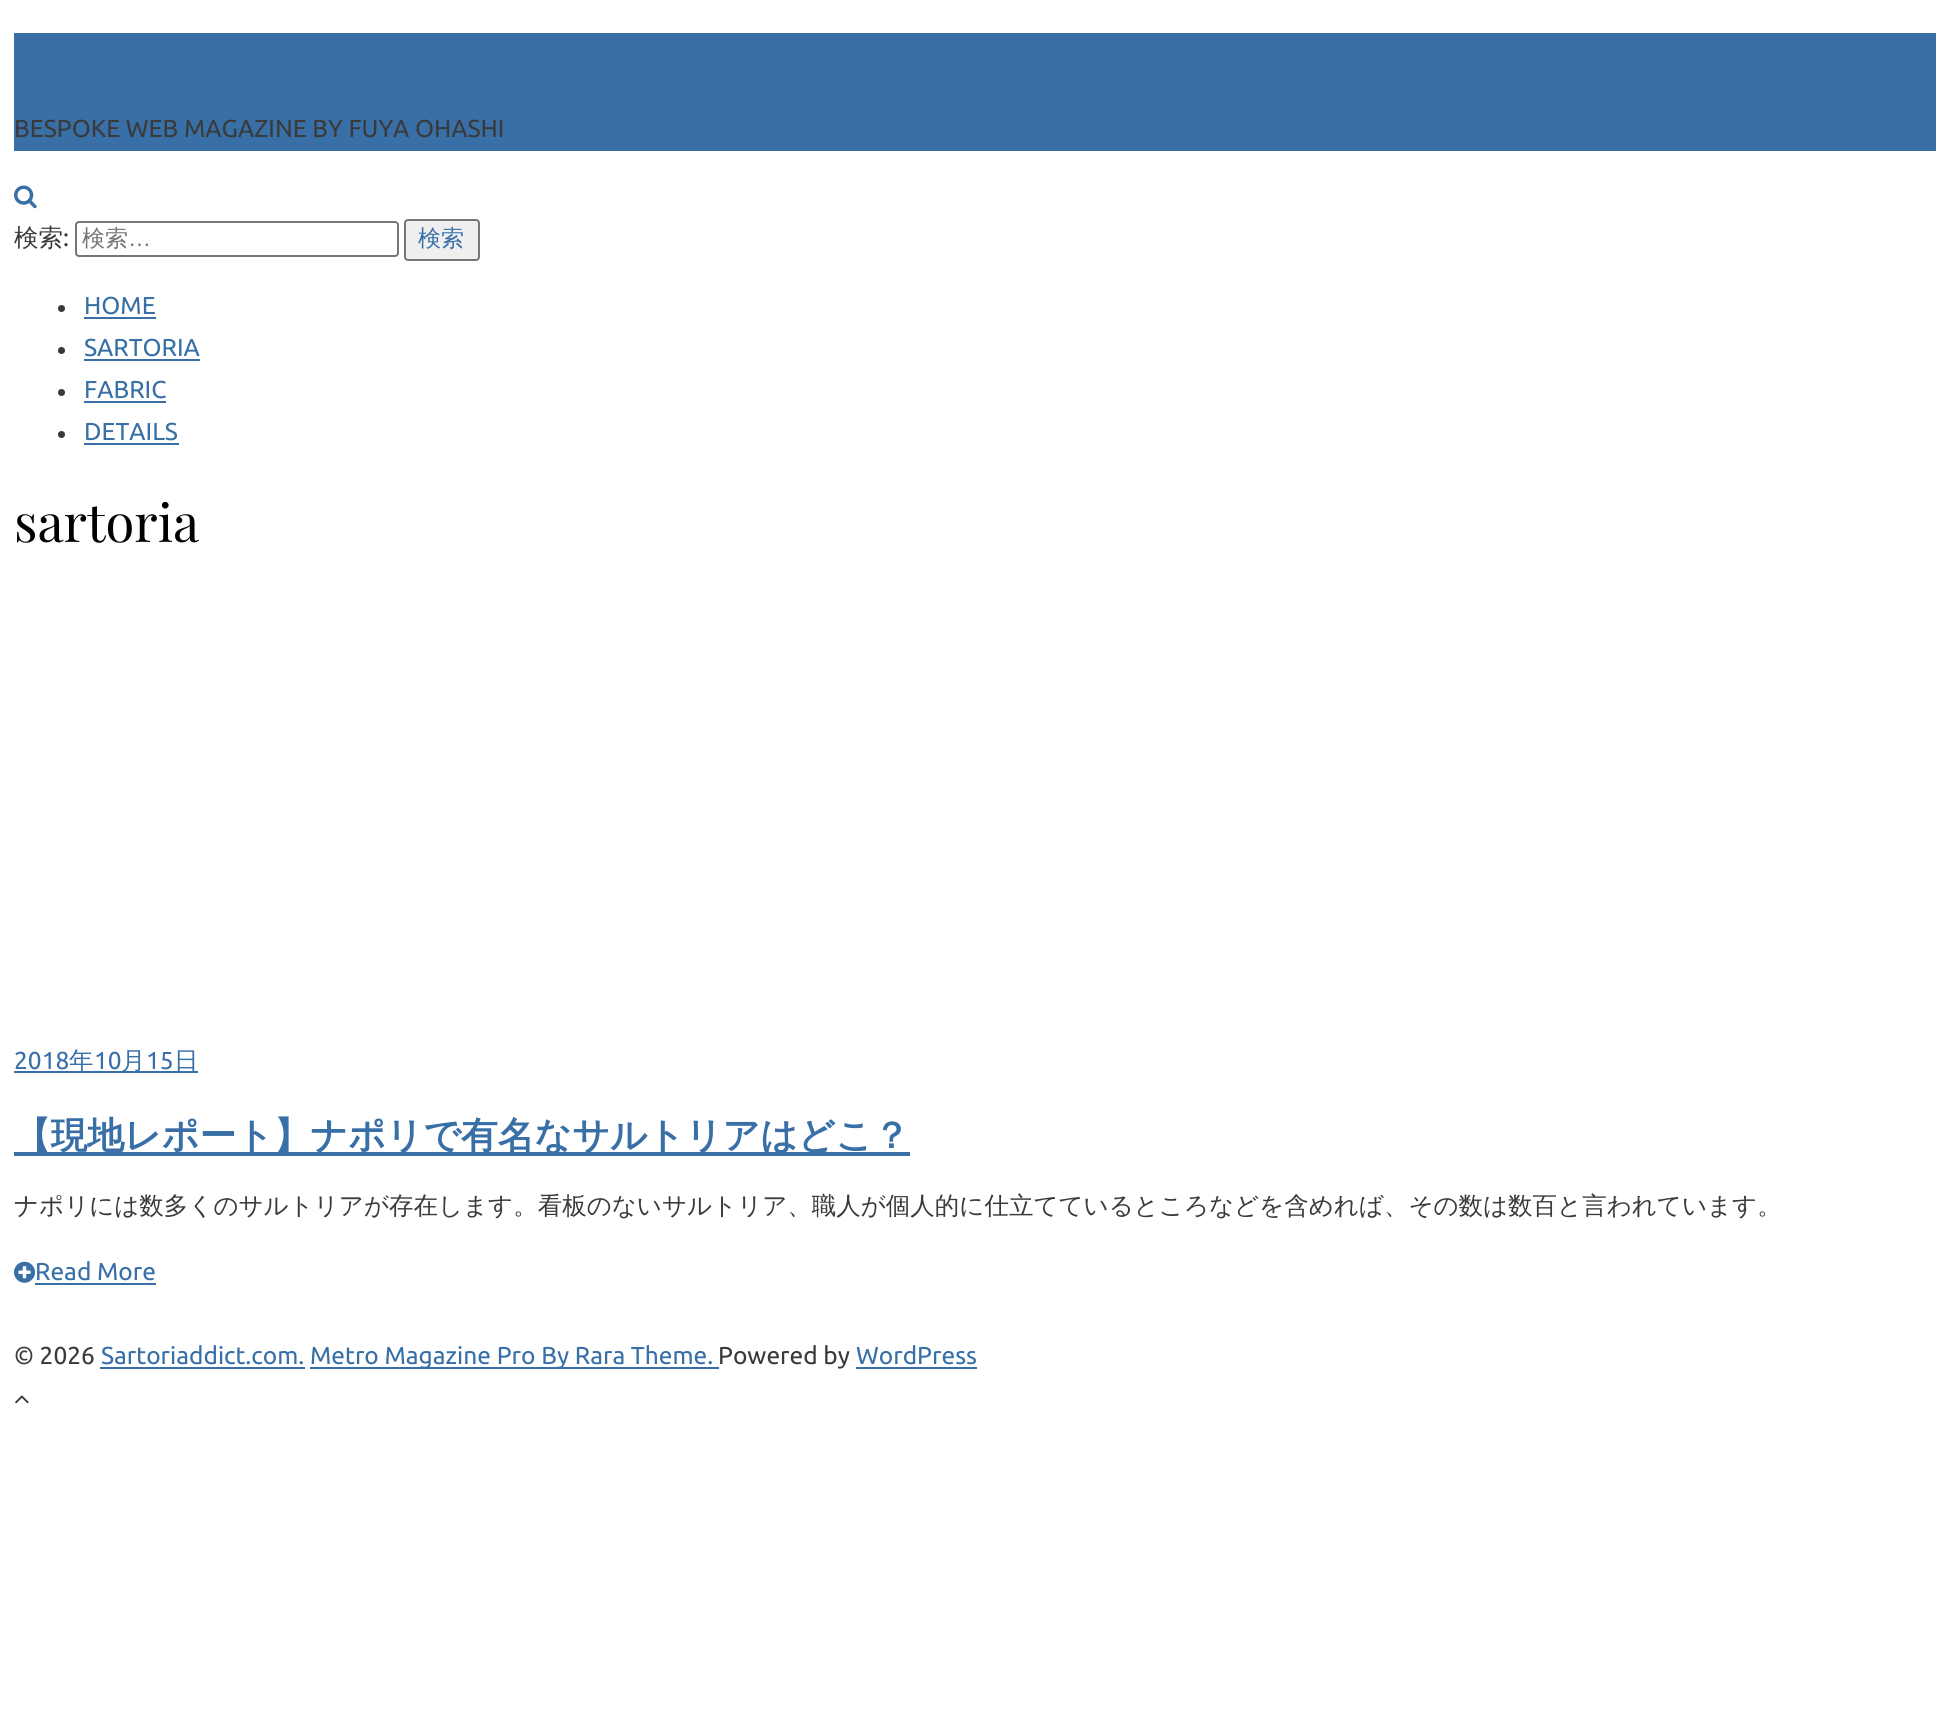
#include <cairo.h>
#include <math.h>
#include <stddef.h>

static cairo_t *ctx;

static void use_color(int r, int g, int b) {
    cairo_set_source_rgb(ctx, r / 255.0, g / 255.0, b / 255.0);
}

static void round_rect(double x, double y, double w, double h, double r) {
    cairo_new_sub_path(ctx);
    cairo_arc(ctx, x + w - r, y + h - r, r, 0, M_PI / 2);
    cairo_arc(ctx, x + r, y + h - r, r, M_PI / 2, M_PI);
    cairo_arc(ctx, x + r, y + r, r, M_PI, 1.5 * M_PI);
    cairo_arc(ctx, x + w - r, y + r, r, 1.5 * M_PI, 2 * M_PI);
    cairo_close_path(ctx);
}

static void picture(const char *path, double x, double y, double w, double h) {
    cairo_surface_t *image = cairo_image_surface_create_from_png(path);
    cairo_save(ctx);
    cairo_set_source_surface(ctx, image, x, y);
    cairo_rectangle(ctx, x, y, w, h);
    cairo_fill(ctx);
    cairo_restore(ctx);
    cairo_surface_destroy(image);
}

int main(void) {
    cairo_surface_t *surface = cairo_image_surface_create(CAIRO_FORMAT_RGB24, 1949, 1728);
    ctx = cairo_create(surface);
    cairo_font_options_t *options = cairo_font_options_create();
    cairo_font_options_set_hint_metrics(options, CAIRO_HINT_METRICS_OFF);
    cairo_font_options_set_hint_style(options, CAIRO_HINT_STYLE_NONE);
    cairo_set_font_options(ctx, options);
    cairo_set_miter_limit(ctx, 4);
    use_color(255, 255, 255);
    cairo_paint(ctx);
    use_color(56, 111, 167);
    cairo_rectangle(ctx, 14, 33, 1922, 118);
    cairo_fill(ctx);
    cairo_select_font_face(ctx, "Ubuntu", CAIRO_FONT_SLANT_NORMAL, CAIRO_FONT_WEIGHT_NORMAL);
    cairo_set_font_size(ctx, 24.5);
    use_color(58, 58, 58);
    cairo_move_to(ctx, 14, 137);
    cairo_show_text(ctx, "BESPOKE WEB MAGAZINE BY FUYA OHASHI");
    picture("img1.png", 14, 185, 23, 24);
    cairo_select_font_face(ctx, "WenQuanYi Zen Hei Medium", CAIRO_FONT_SLANT_NORMAL, CAIRO_FONT_WEIGHT_NORMAL);
    cairo_move_to(ctx, 14, 246);
    cairo_show_text(ctx, "検索");
    cairo_select_font_face(ctx, "Ubuntu", CAIRO_FONT_SLANT_NORMAL, CAIRO_FONT_WEIGHT_NORMAL);
    cairo_move_to(ctx, 63, 246);
    cairo_show_text(ctx, ":");
    round_rect(76, 222, 322, 34, 3);
    use_color(118, 118, 118);
    cairo_stroke(ctx);
    cairo_select_font_face(ctx, "WenQuanYi Zen Hei Medium", CAIRO_FONT_SLANT_NORMAL, CAIRO_FONT_WEIGHT_NORMAL);
    cairo_set_font_size(ctx, 23);
    use_color(117, 117, 117);
    cairo_move_to(ctx, 82, 246);
    cairo_show_text(ctx, "検索");
    cairo_select_font_face(ctx, "Liberation Sans", CAIRO_FONT_SLANT_NORMAL, CAIRO_FONT_WEIGHT_NORMAL);
    cairo_move_to(ctx, 128, 246);
    cairo_show_text(ctx, "…");
    use_color(239, 239, 239);
    round_rect(405, 220, 74, 40, 3);
    cairo_fill_preserve(ctx);
    use_color(118, 118, 118);
    cairo_stroke(ctx);
    cairo_select_font_face(ctx, "WenQuanYi Zen Hei Medium", CAIRO_FONT_SLANT_NORMAL, CAIRO_FONT_WEIGHT_NORMAL);
    use_color(56, 111, 167);
    cairo_move_to(ctx, 418, 246);
    cairo_show_text(ctx, "検索");
    use_color(58, 58, 58);
    cairo_new_path(ctx);
    cairo_arc(ctx, 61.5, 308.5, 3.5, 0, 2 * M_PI);
    cairo_fill(ctx);
    cairo_select_font_face(ctx, "Ubuntu", CAIRO_FONT_SLANT_NORMAL, CAIRO_FONT_WEIGHT_NORMAL);
    cairo_set_font_size(ctx, 24.5);
    use_color(56, 111, 167);
    cairo_move_to(ctx, 84, 314);
    cairo_show_text(ctx, "HOME");
    cairo_rectangle(ctx, 84, 317, 72, 2);
    cairo_fill(ctx);
    use_color(58, 58, 58);
    cairo_arc(ctx, 61.5, 350.5, 3.5, 0, 2 * M_PI);
    cairo_fill(ctx);
    use_color(56, 111, 167);
    cairo_move_to(ctx, 84, 356);
    cairo_show_text(ctx, "SARTORIA");
    cairo_rectangle(ctx, 84, 359, 116, 2);
    cairo_fill(ctx);
    use_color(58, 58, 58);
    cairo_arc(ctx, 61.5, 392.5, 3.5, 0, 2 * M_PI);
    cairo_fill(ctx);
    use_color(56, 111, 167);
    cairo_move_to(ctx, 84, 398);
    cairo_show_text(ctx, "FABRIC");
    cairo_rectangle(ctx, 84, 401, 82, 2);
    cairo_fill(ctx);
    use_color(58, 58, 58);
    cairo_arc(ctx, 61.5, 434.5, 3.5, 0, 2 * M_PI);
    cairo_fill(ctx);
    use_color(56, 111, 167);
    cairo_move_to(ctx, 84, 440);
    cairo_show_text(ctx, "DETAILS");
    cairo_rectangle(ctx, 84, 443, 95, 2);
    cairo_fill(ctx);
    cairo_select_font_face(ctx, "Playfair Display", CAIRO_FONT_SLANT_NORMAL, CAIRO_FONT_WEIGHT_NORMAL);
    cairo_set_font_size(ctx, 52.5);
    use_color(0, 0, 0);
    cairo_move_to(ctx, 14, 542);
    cairo_show_text(ctx, "sartoria");
    cairo_select_font_face(ctx, "Ubuntu", CAIRO_FONT_SLANT_NORMAL, CAIRO_FONT_WEIGHT_NORMAL);
    cairo_set_font_size(ctx, 24.5);
    use_color(56, 111, 167);
    cairo_move_to(ctx, 14, 1069);
    cairo_show_text(ctx, "2018");
    cairo_rectangle(ctx, 14, 1071, 184, 2);
    cairo_fill(ctx);
    cairo_select_font_face(ctx, "WenQuanYi Zen Hei Medium", CAIRO_FONT_SLANT_NORMAL, CAIRO_FONT_WEIGHT_NORMAL);
    cairo_move_to(ctx, 69, 1069);
    cairo_show_text(ctx, "年");
    cairo_select_font_face(ctx, "Ubuntu", CAIRO_FONT_SLANT_NORMAL, CAIRO_FONT_WEIGHT_NORMAL);
    cairo_move_to(ctx, 94, 1069);
    cairo_show_text(ctx, "10");
    cairo_select_font_face(ctx, "WenQuanYi Zen Hei Medium", CAIRO_FONT_SLANT_NORMAL, CAIRO_FONT_WEIGHT_NORMAL);
    cairo_move_to(ctx, 121, 1069);
    cairo_show_text(ctx, "月");
    cairo_select_font_face(ctx, "Ubuntu", CAIRO_FONT_SLANT_NORMAL, CAIRO_FONT_WEIGHT_NORMAL);
    cairo_move_to(ctx, 146, 1069);
    cairo_show_text(ctx, "15");
    cairo_select_font_face(ctx, "WenQuanYi Zen Hei Medium", CAIRO_FONT_SLANT_NORMAL, CAIRO_FONT_WEIGHT_NORMAL);
    cairo_move_to(ctx, 174, 1069);
    cairo_show_text(ctx, "日");
    cairo_rectangle(ctx, 14, 1152, 896, 4);
    cairo_fill(ctx);
    cairo_select_font_face(ctx, "WenQuanYi Zen Hei", CAIRO_FONT_SLANT_NORMAL, CAIRO_FONT_WEIGHT_BOLD);
    cairo_set_font_size(ctx, 36.75);
    cairo_move_to(ctx, 14, 1148);
    cairo_show_text(ctx, "【現地レポート】ナポリで有名なサルトリアはどこ？");
    cairo_select_font_face(ctx, "WenQuanYi Zen Hei Medium", CAIRO_FONT_SLANT_NORMAL, CAIRO_FONT_WEIGHT_NORMAL);
    cairo_set_font_size(ctx, 24.5);
    use_color(58, 58, 58);
    cairo_move_to(ctx, 14, 1214);
    cairo_show_text(ctx, "ナポリには数多くのサルトリアが存在します。看板のないサルトリア、職人が個人的に仕立てているところなどを含めれば、その数は数百と言われています。");
    picture("img2.png", 14, 1261, 21, 22);
    cairo_select_font_face(ctx, "Ubuntu", CAIRO_FONT_SLANT_NORMAL, CAIRO_FONT_WEIGHT_NORMAL);
    use_color(56, 111, 167);
    cairo_move_to(ctx, 35, 1280);
    cairo_show_text(ctx, "Read More");
    cairo_rectangle(ctx, 35, 1283, 121, 2);
    cairo_fill(ctx);
    use_color(58, 58, 58);
    cairo_move_to(ctx, 14, 1364);
    cairo_show_text(ctx, "© 2026");
    use_color(56, 111, 167);
    cairo_move_to(ctx, 101, 1364);
    cairo_show_text(ctx, "Sartoriaddict.com.");
    cairo_rectangle(ctx, 100, 1367, 205, 2);
    cairo_fill(ctx);
    cairo_rectangle(ctx, 310, 1367, 409, 2);
    cairo_fill(ctx);
    cairo_move_to(ctx, 310, 1364);
    cairo_show_text(ctx, "Metro Magazine Pro By Rara Theme.");
    use_color(58, 58, 58);
    cairo_move_to(ctx, 718, 1364);
    cairo_show_text(ctx, "Powered by");
    use_color(56, 111, 167);
    cairo_move_to(ctx, 856, 1364);
    cairo_show_text(ctx, "WordPress");
    cairo_rectangle(ctx, 856, 1367, 121, 2);
    cairo_fill(ctx);
    picture("img3.png", 15, 1395, 14, 9);
    cairo_surface_write_to_png(surface, "result.png");
    cairo_font_options_destroy(options);
    cairo_destroy(ctx);
    cairo_surface_destroy(surface);
    return 0;
}
